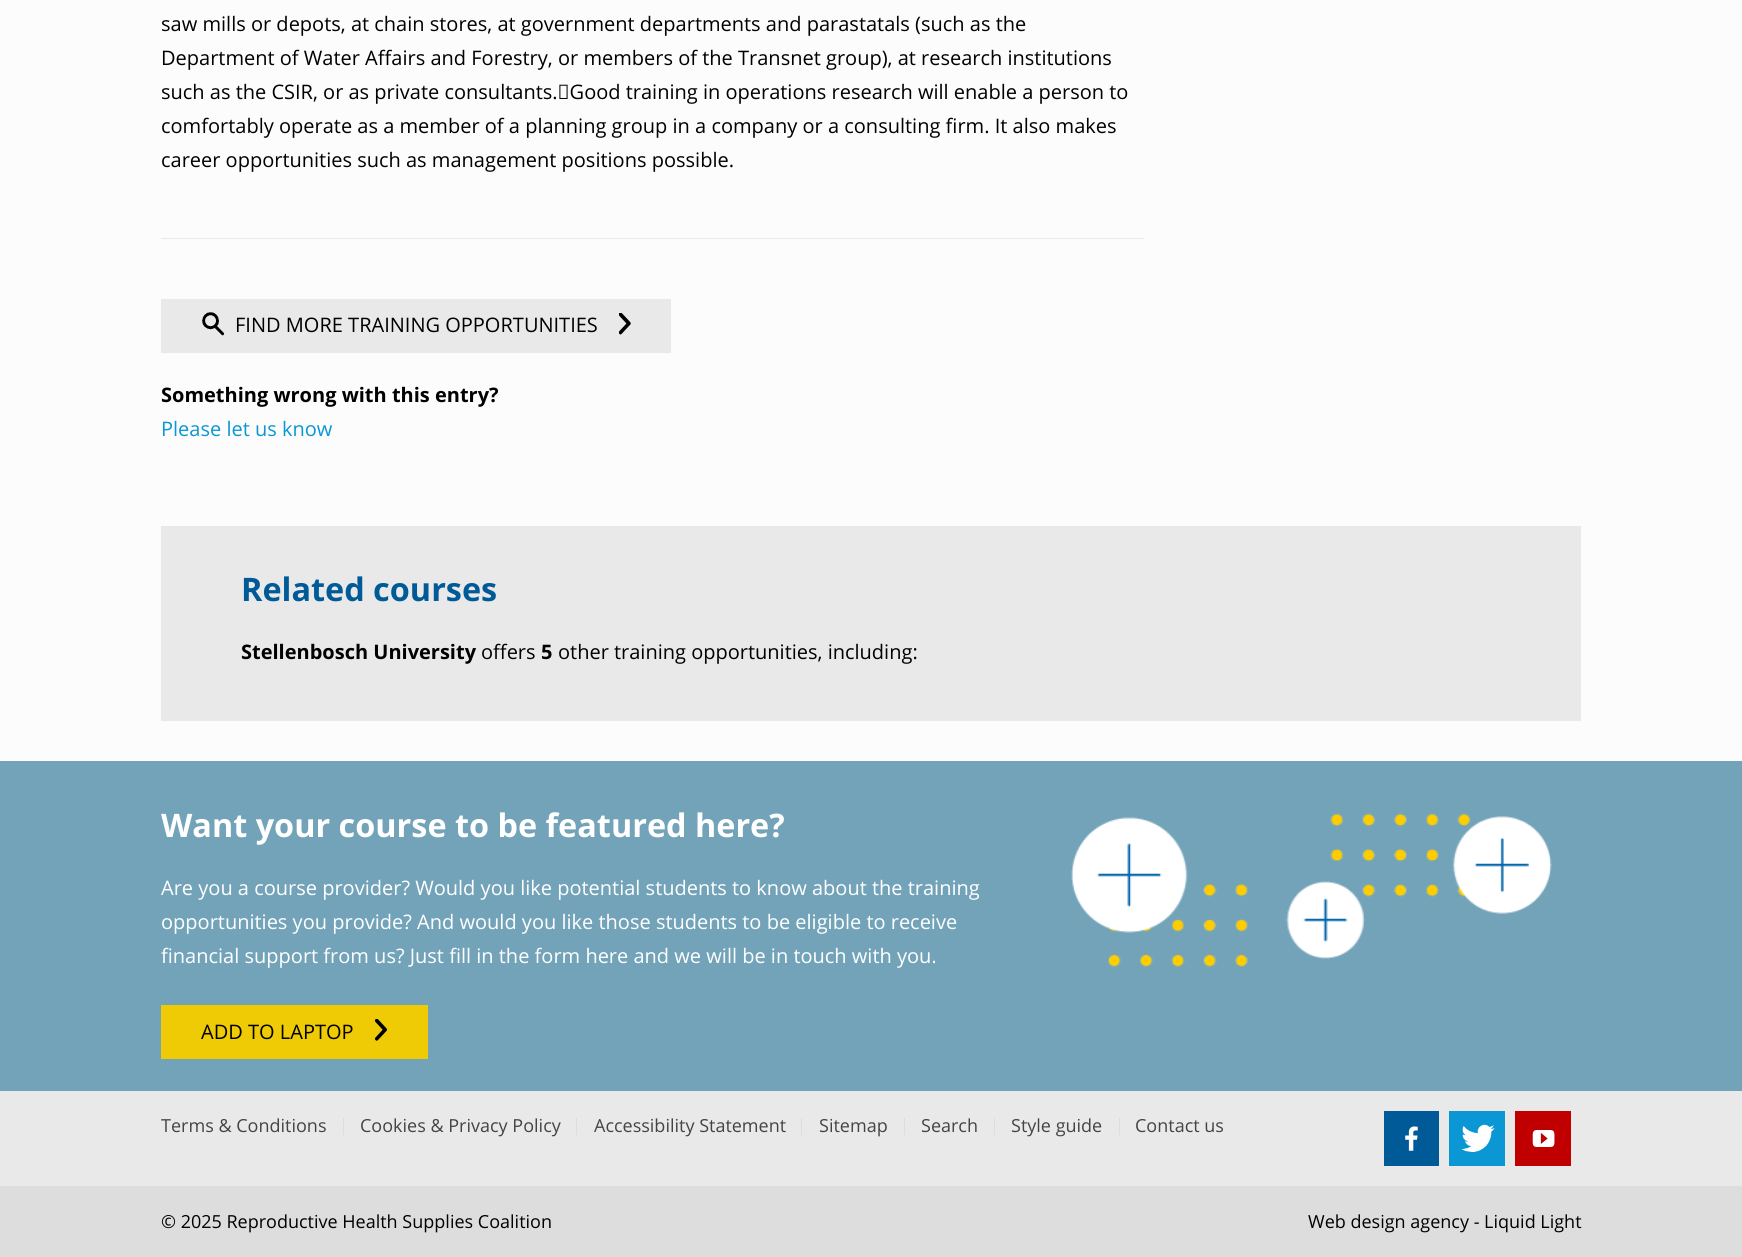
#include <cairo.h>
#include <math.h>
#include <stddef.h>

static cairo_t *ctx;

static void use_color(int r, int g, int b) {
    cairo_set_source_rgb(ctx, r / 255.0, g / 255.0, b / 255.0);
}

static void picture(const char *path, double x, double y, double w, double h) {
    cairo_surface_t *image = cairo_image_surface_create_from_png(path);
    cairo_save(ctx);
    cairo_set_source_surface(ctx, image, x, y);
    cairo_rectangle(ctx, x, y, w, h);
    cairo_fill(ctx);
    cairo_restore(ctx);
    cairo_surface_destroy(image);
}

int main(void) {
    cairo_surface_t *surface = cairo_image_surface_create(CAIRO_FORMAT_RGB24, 1742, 1257);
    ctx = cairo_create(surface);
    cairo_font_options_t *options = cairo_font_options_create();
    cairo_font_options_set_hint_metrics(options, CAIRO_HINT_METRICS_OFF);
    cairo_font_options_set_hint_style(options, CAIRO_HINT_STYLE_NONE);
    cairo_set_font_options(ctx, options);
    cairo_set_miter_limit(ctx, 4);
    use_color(252, 252, 252);
    cairo_paint(ctx);
    cairo_select_font_face(ctx, "Open Sans", CAIRO_FONT_SLANT_NORMAL, CAIRO_FONT_WEIGHT_NORMAL);
    cairo_set_font_size(ctx, 20);
    use_color(0, 0, 0);
    cairo_move_to(ctx, 161, 31);
    cairo_show_text(ctx, "saw mills or depots, at chain stores, at government departments and parastatals (such as the");
    cairo_move_to(ctx, 161, 65);
    cairo_show_text(ctx, "Department of Water Affairs and Forestry, or members of the Transnet group), at research institutions");
    cairo_move_to(ctx, 161, 99);
    cairo_show_text(ctx, "such as the CSIR, or as private consultants. Good training in operations research will enable a person to");
    cairo_move_to(ctx, 161, 133);
    cairo_show_text(ctx, "comfortably operate as a member of a planning group in a company or a consulting firm. It also makes");
    cairo_move_to(ctx, 161, 167);
    cairo_show_text(ctx, "career opportunities such as management positions possible.");
    use_color(233, 233, 233);
    cairo_rectangle(ctx, 161, 238, 983, 1);
    cairo_fill(ctx);
    cairo_rectangle(ctx, 161, 299, 510, 54);
    cairo_fill(ctx);
    picture("img1.png", 202, 312, 23, 24);
    use_color(0, 0, 0);
    cairo_move_to(ctx, 235, 332);
    cairo_show_text(ctx, "FIND MORE TRAINING OPPORTUNITIES");
    picture("img2.png", 619, 313, 12, 22);
    cairo_select_font_face(ctx, "Open Sans", CAIRO_FONT_SLANT_NORMAL, CAIRO_FONT_WEIGHT_BOLD);
    cairo_move_to(ctx, 161, 402);
    cairo_show_text(ctx, "Something wrong with this entry?");
    cairo_select_font_face(ctx, "Open Sans", CAIRO_FONT_SLANT_NORMAL, CAIRO_FONT_WEIGHT_NORMAL);
    use_color(11, 151, 212);
    cairo_move_to(ctx, 161, 436);
    cairo_show_text(ctx, "Please let us know");
    use_color(233, 233, 233);
    cairo_rectangle(ctx, 161, 526, 1420, 195);
    cairo_fill(ctx);
    cairo_select_font_face(ctx, "Open Sans", CAIRO_FONT_SLANT_NORMAL, CAIRO_FONT_WEIGHT_BOLD);
    cairo_set_font_size(ctx, 32.4);
    use_color(0, 90, 152);
    cairo_move_to(ctx, 241, 601);
    cairo_show_text(ctx, "Related courses");
    cairo_set_font_size(ctx, 20);
    use_color(0, 0, 0);
    cairo_move_to(ctx, 241, 659);
    cairo_show_text(ctx, "Stellenbosch University");
    cairo_select_font_face(ctx, "Open Sans", CAIRO_FONT_SLANT_NORMAL, CAIRO_FONT_WEIGHT_NORMAL);
    cairo_move_to(ctx, 481, 659);
    cairo_show_text(ctx, "offers");
    cairo_select_font_face(ctx, "Open Sans", CAIRO_FONT_SLANT_NORMAL, CAIRO_FONT_WEIGHT_BOLD);
    cairo_move_to(ctx, 541, 659);
    cairo_show_text(ctx, "5");
    cairo_select_font_face(ctx, "Open Sans", CAIRO_FONT_SLANT_NORMAL, CAIRO_FONT_WEIGHT_NORMAL);
    cairo_move_to(ctx, 558, 659);
    cairo_show_text(ctx, "other training opportunities, including:");
    use_color(114, 163, 185);
    cairo_rectangle(ctx, 0, 761, 1742, 330);
    cairo_fill(ctx);
    cairo_select_font_face(ctx, "Open Sans", CAIRO_FONT_SLANT_NORMAL, CAIRO_FONT_WEIGHT_BOLD);
    cairo_set_font_size(ctx, 32.4);
    use_color(255, 255, 255);
    cairo_move_to(ctx, 161, 837);
    cairo_show_text(ctx, "Want your course to be featured here?");
    cairo_select_font_face(ctx, "Open Sans", CAIRO_FONT_SLANT_NORMAL, CAIRO_FONT_WEIGHT_NORMAL);
    cairo_set_font_size(ctx, 20);
    cairo_move_to(ctx, 161, 895);
    cairo_show_text(ctx, "Are you a course provider? Would you like potential students to know about the training");
    cairo_move_to(ctx, 161, 929);
    cairo_show_text(ctx, "opportunities you provide? And would you like those students to be eligible to receive");
    cairo_move_to(ctx, 161, 963);
    cairo_show_text(ctx, "financial support from us? Just fill in the form here and we will be in touch with you.");
    use_color(238, 203, 4);
    cairo_rectangle(ctx, 161, 1005, 267, 54);
    cairo_fill(ctx);
    use_color(0, 0, 0);
    cairo_move_to(ctx, 201, 1039);
    cairo_show_text(ctx, "ADD TO LAPTOP");
    picture("img3.png", 375, 1019, 12, 22);
    picture("img4.png", 1071, 813, 481, 154);
    use_color(233, 233, 233);
    cairo_rectangle(ctx, 0, 1091, 1742, 95);
    cairo_fill(ctx);
    cairo_set_font_size(ctx, 18);
    use_color(68, 68, 68);
    cairo_move_to(ctx, 161, 1132);
    cairo_show_text(ctx, "Terms & Conditions");
    use_color(221, 221, 221);
    cairo_rectangle(ctx, 343, 1118, 1, 17);
    cairo_fill(ctx);
    use_color(68, 68, 68);
    cairo_move_to(ctx, 360, 1132);
    cairo_show_text(ctx, "Cookies & Privacy Policy");
    use_color(221, 221, 221);
    cairo_rectangle(ctx, 576, 1118, 1, 17);
    cairo_fill(ctx);
    use_color(68, 68, 68);
    cairo_move_to(ctx, 594, 1132);
    cairo_show_text(ctx, "Accessibility Statement");
    use_color(221, 221, 221);
    cairo_rectangle(ctx, 801, 1118, 1, 17);
    cairo_fill(ctx);
    use_color(68, 68, 68);
    cairo_move_to(ctx, 819, 1132);
    cairo_show_text(ctx, "Sitemap");
    use_color(221, 221, 221);
    cairo_rectangle(ctx, 904, 1118, 1, 17);
    cairo_fill(ctx);
    use_color(68, 68, 68);
    cairo_move_to(ctx, 921, 1132);
    cairo_show_text(ctx, "Search");
    use_color(221, 221, 221);
    cairo_rectangle(ctx, 994, 1118, 1, 17);
    cairo_fill(ctx);
    use_color(68, 68, 68);
    cairo_move_to(ctx, 1011, 1132);
    cairo_show_text(ctx, "Style guide");
    use_color(221, 221, 221);
    cairo_rectangle(ctx, 1119, 1118, 1, 17);
    cairo_fill(ctx);
    use_color(68, 68, 68);
    cairo_move_to(ctx, 1135, 1132);
    cairo_show_text(ctx, "Contact us");
    use_color(0, 90, 152);
    cairo_rectangle(ctx, 1384, 1111, 55, 55);
    cairo_fill(ctx);
    picture("img5.png", 1405, 1126, 13, 25);
    use_color(11, 151, 212);
    cairo_rectangle(ctx, 1449, 1111, 56, 55);
    cairo_fill(ctx);
    picture("img6.png", 1461, 1124, 34, 28);
    use_color(192, 0, 0);
    cairo_rectangle(ctx, 1515, 1111, 56, 55);
    cairo_fill(ctx);
    picture("img7.png", 1532, 1130, 23, 17);
    use_color(221, 221, 221);
    cairo_rectangle(ctx, 0, 1186, 1742, 71);
    cairo_fill(ctx);
    use_color(0, 0, 0);
    cairo_move_to(ctx, 161, 1228);
    cairo_show_text(ctx, "© 2025 Reproductive Health Supplies Coalition");
    cairo_move_to(ctx, 1308, 1228);
    cairo_show_text(ctx, "Web design agency - Liquid Light");
    cairo_surface_write_to_png(surface, "result.png");
    cairo_font_options_destroy(options);
    cairo_destroy(ctx);
    cairo_surface_destroy(surface);
    return 0;
}
